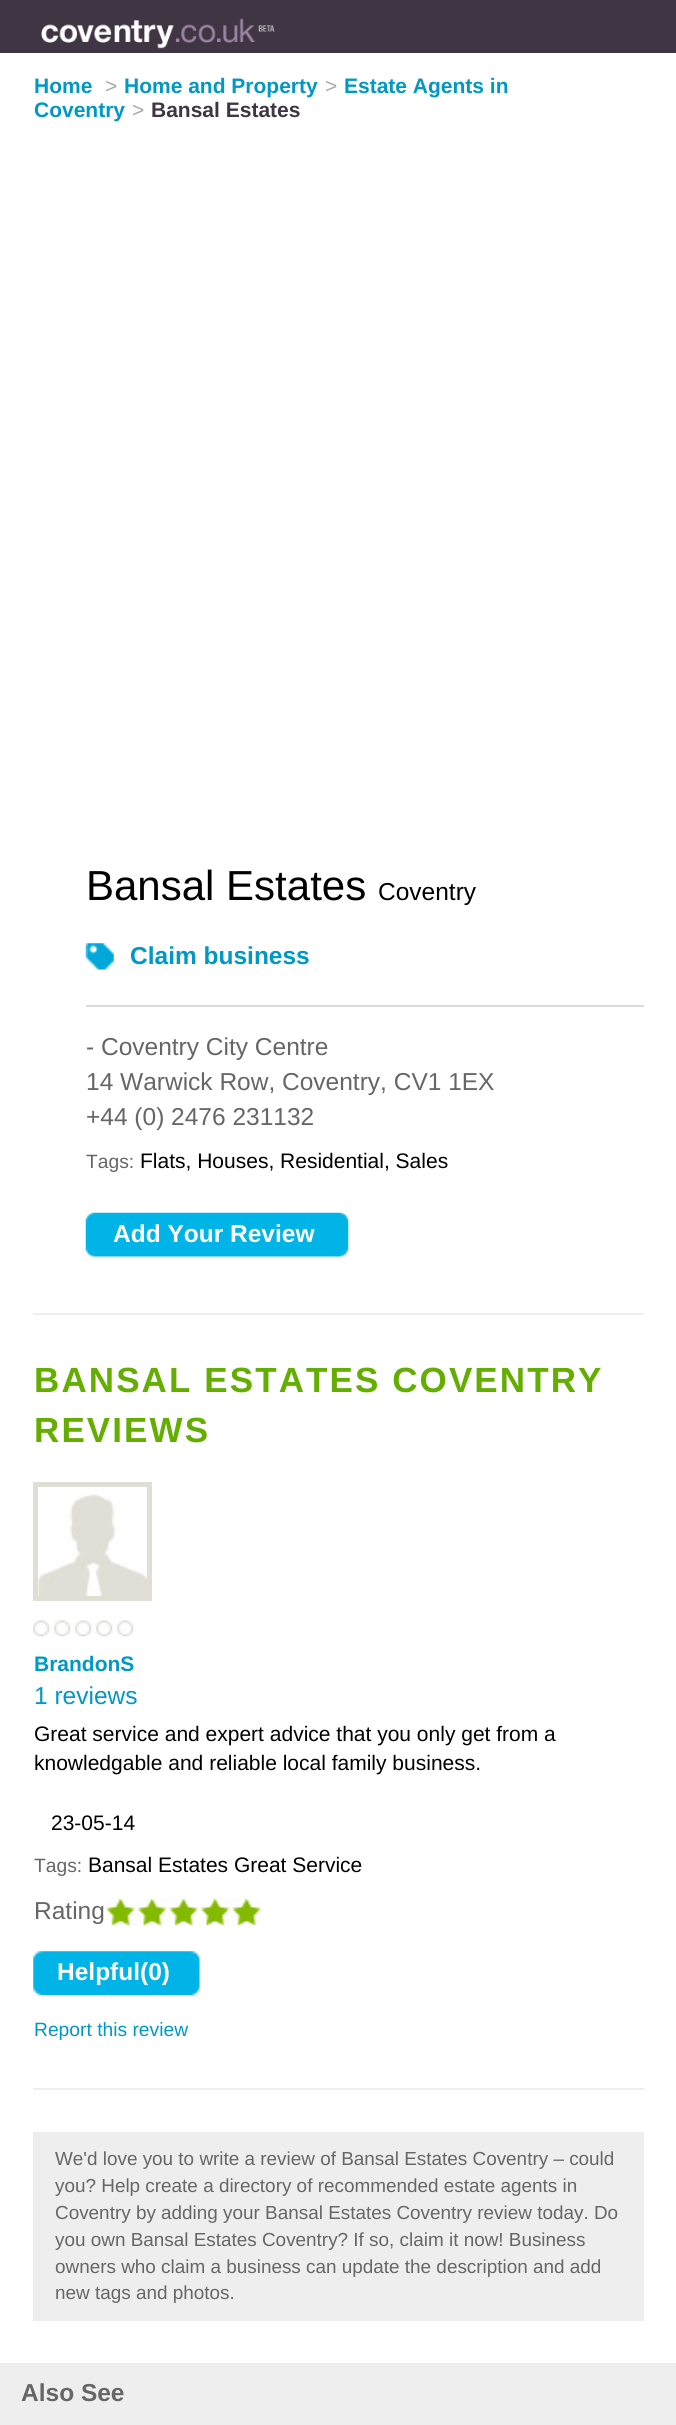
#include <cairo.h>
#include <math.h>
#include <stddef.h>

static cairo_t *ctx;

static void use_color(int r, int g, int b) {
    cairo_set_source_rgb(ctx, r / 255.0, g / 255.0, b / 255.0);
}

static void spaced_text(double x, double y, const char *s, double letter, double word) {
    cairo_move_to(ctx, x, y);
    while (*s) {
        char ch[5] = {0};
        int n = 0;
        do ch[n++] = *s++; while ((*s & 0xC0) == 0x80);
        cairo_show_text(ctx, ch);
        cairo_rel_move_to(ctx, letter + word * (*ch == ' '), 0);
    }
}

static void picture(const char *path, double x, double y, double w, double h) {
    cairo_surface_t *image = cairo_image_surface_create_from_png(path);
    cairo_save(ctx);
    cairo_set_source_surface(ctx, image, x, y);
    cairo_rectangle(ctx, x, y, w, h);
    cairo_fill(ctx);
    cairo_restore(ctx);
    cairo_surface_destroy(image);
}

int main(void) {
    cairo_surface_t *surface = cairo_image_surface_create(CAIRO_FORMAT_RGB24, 676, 2425);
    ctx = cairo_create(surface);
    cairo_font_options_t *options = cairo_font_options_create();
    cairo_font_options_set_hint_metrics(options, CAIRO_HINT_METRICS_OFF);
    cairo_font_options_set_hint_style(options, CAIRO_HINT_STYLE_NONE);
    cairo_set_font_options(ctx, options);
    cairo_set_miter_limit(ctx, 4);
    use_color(64, 54, 67);
    cairo_paint(ctx);
    picture("img1.png", 41, 18, 234, 31);
    use_color(255, 255, 255);
    cairo_rectangle(ctx, 0, 53, 676, 2310);
    cairo_fill(ctx);
    cairo_select_font_face(ctx, "Liberation Sans", CAIRO_FONT_SLANT_NORMAL, CAIRO_FONT_WEIGHT_BOLD);
    cairo_set_font_size(ctx, 21);
    use_color(0, 152, 196);
    cairo_move_to(ctx, 34, 93);
    cairo_show_text(ctx, "Home");
    cairo_select_font_face(ctx, "Liberation Sans", CAIRO_FONT_SLANT_NORMAL, CAIRO_FONT_WEIGHT_NORMAL);
    use_color(169, 169, 169);
    cairo_move_to(ctx, 105, 93);
    cairo_show_text(ctx, ">");
    cairo_select_font_face(ctx, "Liberation Sans", CAIRO_FONT_SLANT_NORMAL, CAIRO_FONT_WEIGHT_BOLD);
    use_color(0, 152, 196);
    cairo_move_to(ctx, 124, 93);
    cairo_show_text(ctx, "Home and Property");
    cairo_select_font_face(ctx, "Liberation Sans", CAIRO_FONT_SLANT_NORMAL, CAIRO_FONT_WEIGHT_NORMAL);
    use_color(169, 169, 169);
    cairo_move_to(ctx, 325, 93);
    cairo_show_text(ctx, ">");
    cairo_select_font_face(ctx, "Liberation Sans", CAIRO_FONT_SLANT_NORMAL, CAIRO_FONT_WEIGHT_BOLD);
    use_color(0, 152, 196);
    cairo_move_to(ctx, 344, 93);
    cairo_show_text(ctx, "Estate Agents in");
    cairo_move_to(ctx, 34, 117);
    cairo_show_text(ctx, "Coventry");
    cairo_select_font_face(ctx, "Liberation Sans", CAIRO_FONT_SLANT_NORMAL, CAIRO_FONT_WEIGHT_NORMAL);
    use_color(169, 169, 169);
    cairo_move_to(ctx, 132, 117);
    cairo_show_text(ctx, ">");
    cairo_select_font_face(ctx, "Liberation Sans", CAIRO_FONT_SLANT_NORMAL, CAIRO_FONT_WEIGHT_BOLD);
    use_color(64, 54, 67);
    cairo_move_to(ctx, 151, 117);
    cairo_show_text(ctx, "Bansal Estates");
    cairo_select_font_face(ctx, "Liberation Sans", CAIRO_FONT_SLANT_NORMAL, CAIRO_FONT_WEIGHT_NORMAL);
    cairo_set_font_size(ctx, 42);
    use_color(0, 0, 0);
    cairo_move_to(ctx, 86, 900);
    cairo_show_text(ctx, "Bansal Estates");
    cairo_set_font_size(ctx, 24.5);
    cairo_move_to(ctx, 378, 900);
    cairo_show_text(ctx, "Coventry");
    picture("img2.png", 85, 943, 29, 27);
    cairo_select_font_face(ctx, "Liberation Sans", CAIRO_FONT_SLANT_NORMAL, CAIRO_FONT_WEIGHT_BOLD);
    use_color(0, 152, 196);
    cairo_move_to(ctx, 130, 964);
    cairo_show_text(ctx, "Claim business");
    use_color(218, 218, 218);
    cairo_rectangle(ctx, 86, 1005, 558, 2);
    cairo_fill(ctx);
    cairo_select_font_face(ctx, "Liberation Sans", CAIRO_FONT_SLANT_NORMAL, CAIRO_FONT_WEIGHT_NORMAL);
    use_color(102, 102, 102);
    cairo_move_to(ctx, 86, 1055);
    cairo_show_text(ctx, "- Coventry City Centre");
    cairo_move_to(ctx, 86, 1090);
    cairo_show_text(ctx, "14 Warwick Row, Coventry, CV1 1EX");
    cairo_move_to(ctx, 86, 1125);
    cairo_show_text(ctx, "+44 (0) 2476 231132");
    cairo_set_font_size(ctx, 19.25);
    cairo_move_to(ctx, 86, 1168);
    cairo_show_text(ctx, "Tags:");
    cairo_set_font_size(ctx, 21);
    use_color(0, 0, 0);
    cairo_move_to(ctx, 140, 1168);
    cairo_show_text(ctx, "Flats, Houses, Residential, Sales");
    picture("img3.png", 85, 1212, 264, 45);
    cairo_select_font_face(ctx, "Liberation Sans", CAIRO_FONT_SLANT_NORMAL, CAIRO_FONT_WEIGHT_BOLD);
    cairo_set_font_size(ctx, 24.5);
    use_color(255, 255, 255);
    cairo_move_to(ctx, 113, 1242);
    cairo_show_text(ctx, "Add Your Review");
    use_color(238, 238, 238);
    cairo_rectangle(ctx, 33, 1313, 611, 2);
    cairo_fill(ctx);
    cairo_set_font_size(ctx, 35);
    use_color(99, 174, 1);
    spaced_text(34, 1392, "BANSAL ESTATES COVENTRY", 2.1, 0);
    spaced_text(34, 1442, "REVIEWS", 2.1, 0);
    cairo_rectangle(ctx, 35.5, 1484.5, 114, 114);
    use_color(224, 223, 214);
    cairo_set_line_width(ctx, 5);
    cairo_stroke(ctx);
    picture("img4.png", 38, 1494, 109, 102);
    picture("img5.png", 33, 1620, 100, 17);
    cairo_set_font_size(ctx, 21);
    use_color(0, 152, 196);
    cairo_move_to(ctx, 34, 1671);
    cairo_show_text(ctx, "BrandonS");
    cairo_select_font_face(ctx, "Liberation Sans", CAIRO_FONT_SLANT_NORMAL, CAIRO_FONT_WEIGHT_NORMAL);
    cairo_set_font_size(ctx, 24.5);
    cairo_move_to(ctx, 34, 1704);
    cairo_show_text(ctx, "1 reviews");
    cairo_set_font_size(ctx, 21);
    use_color(0, 0, 0);
    cairo_move_to(ctx, 34, 1741);
    cairo_show_text(ctx, "Great service and expert advice that you only get from a");
    cairo_move_to(ctx, 34, 1770);
    cairo_show_text(ctx, "knowledgable and reliable local family business.");
    cairo_move_to(ctx, 51, 1830);
    cairo_show_text(ctx, "23-05-14");
    cairo_set_font_size(ctx, 19.25);
    use_color(102, 102, 102);
    cairo_move_to(ctx, 34, 1872);
    cairo_show_text(ctx, "Tags:");
    cairo_set_font_size(ctx, 21);
    use_color(0, 0, 0);
    cairo_move_to(ctx, 88, 1872);
    cairo_show_text(ctx, "Bansal Estates Great Service");
    picture("img6.png", 106, 1898, 155, 27);
    cairo_set_font_size(ctx, 24.5);
    use_color(102, 102, 102);
    cairo_move_to(ctx, 34, 1919);
    cairo_show_text(ctx, "Rating");
    picture("img7.png", 33, 1951, 167, 44);
    cairo_select_font_face(ctx, "Liberation Sans", CAIRO_FONT_SLANT_NORMAL, CAIRO_FONT_WEIGHT_BOLD);
    use_color(255, 255, 255);
    cairo_move_to(ctx, 57, 1980);
    cairo_show_text(ctx, "Helpful(0)");
    cairo_select_font_face(ctx, "Liberation Sans", CAIRO_FONT_SLANT_NORMAL, CAIRO_FONT_WEIGHT_NORMAL);
    cairo_set_font_size(ctx, 19.25);
    use_color(0, 152, 196);
    cairo_move_to(ctx, 34, 2036);
    cairo_show_text(ctx, "Report this review");
    use_color(238, 238, 238);
    cairo_rectangle(ctx, 33, 2088, 611, 2);
    cairo_fill(ctx);
    cairo_rectangle(ctx, 33, 2132, 611, 189);
    cairo_fill(ctx);
    cairo_set_font_size(ctx, 18.9);
    use_color(102, 102, 102);
    cairo_move_to(ctx, 55, 2165);
    cairo_show_text(ctx, "We'd love you to write a review of Bansal Estates Coventry – could");
    cairo_move_to(ctx, 55, 2192);
    cairo_show_text(ctx, "you? Help create a directory of recommended estate agents in");
    cairo_move_to(ctx, 55, 2219);
    cairo_show_text(ctx, "Coventry by adding your Bansal Estates Coventry review today. Do");
    cairo_move_to(ctx, 55, 2246);
    cairo_show_text(ctx, "you own Bansal Estates Coventry? If so, claim it now! Business");
    cairo_move_to(ctx, 55, 2273);
    cairo_show_text(ctx, "owners who claim a business can update the description and add");
    cairo_move_to(ctx, 55, 2299);
    cairo_show_text(ctx, "new tags and photos.");
    use_color(238, 238, 238);
    cairo_rectangle(ctx, 0, 2363, 676, 62);
    cairo_fill(ctx);
    cairo_select_font_face(ctx, "Liberation Sans", CAIRO_FONT_SLANT_NORMAL, CAIRO_FONT_WEIGHT_BOLD);
    cairo_set_font_size(ctx, 24.5);
    use_color(102, 102, 102);
    cairo_move_to(ctx, 21, 2401);
    cairo_show_text(ctx, "Also See");
    cairo_surface_write_to_png(surface, "result.png");
    cairo_font_options_destroy(options);
    cairo_destroy(ctx);
    cairo_surface_destroy(surface);
    return 0;
}
